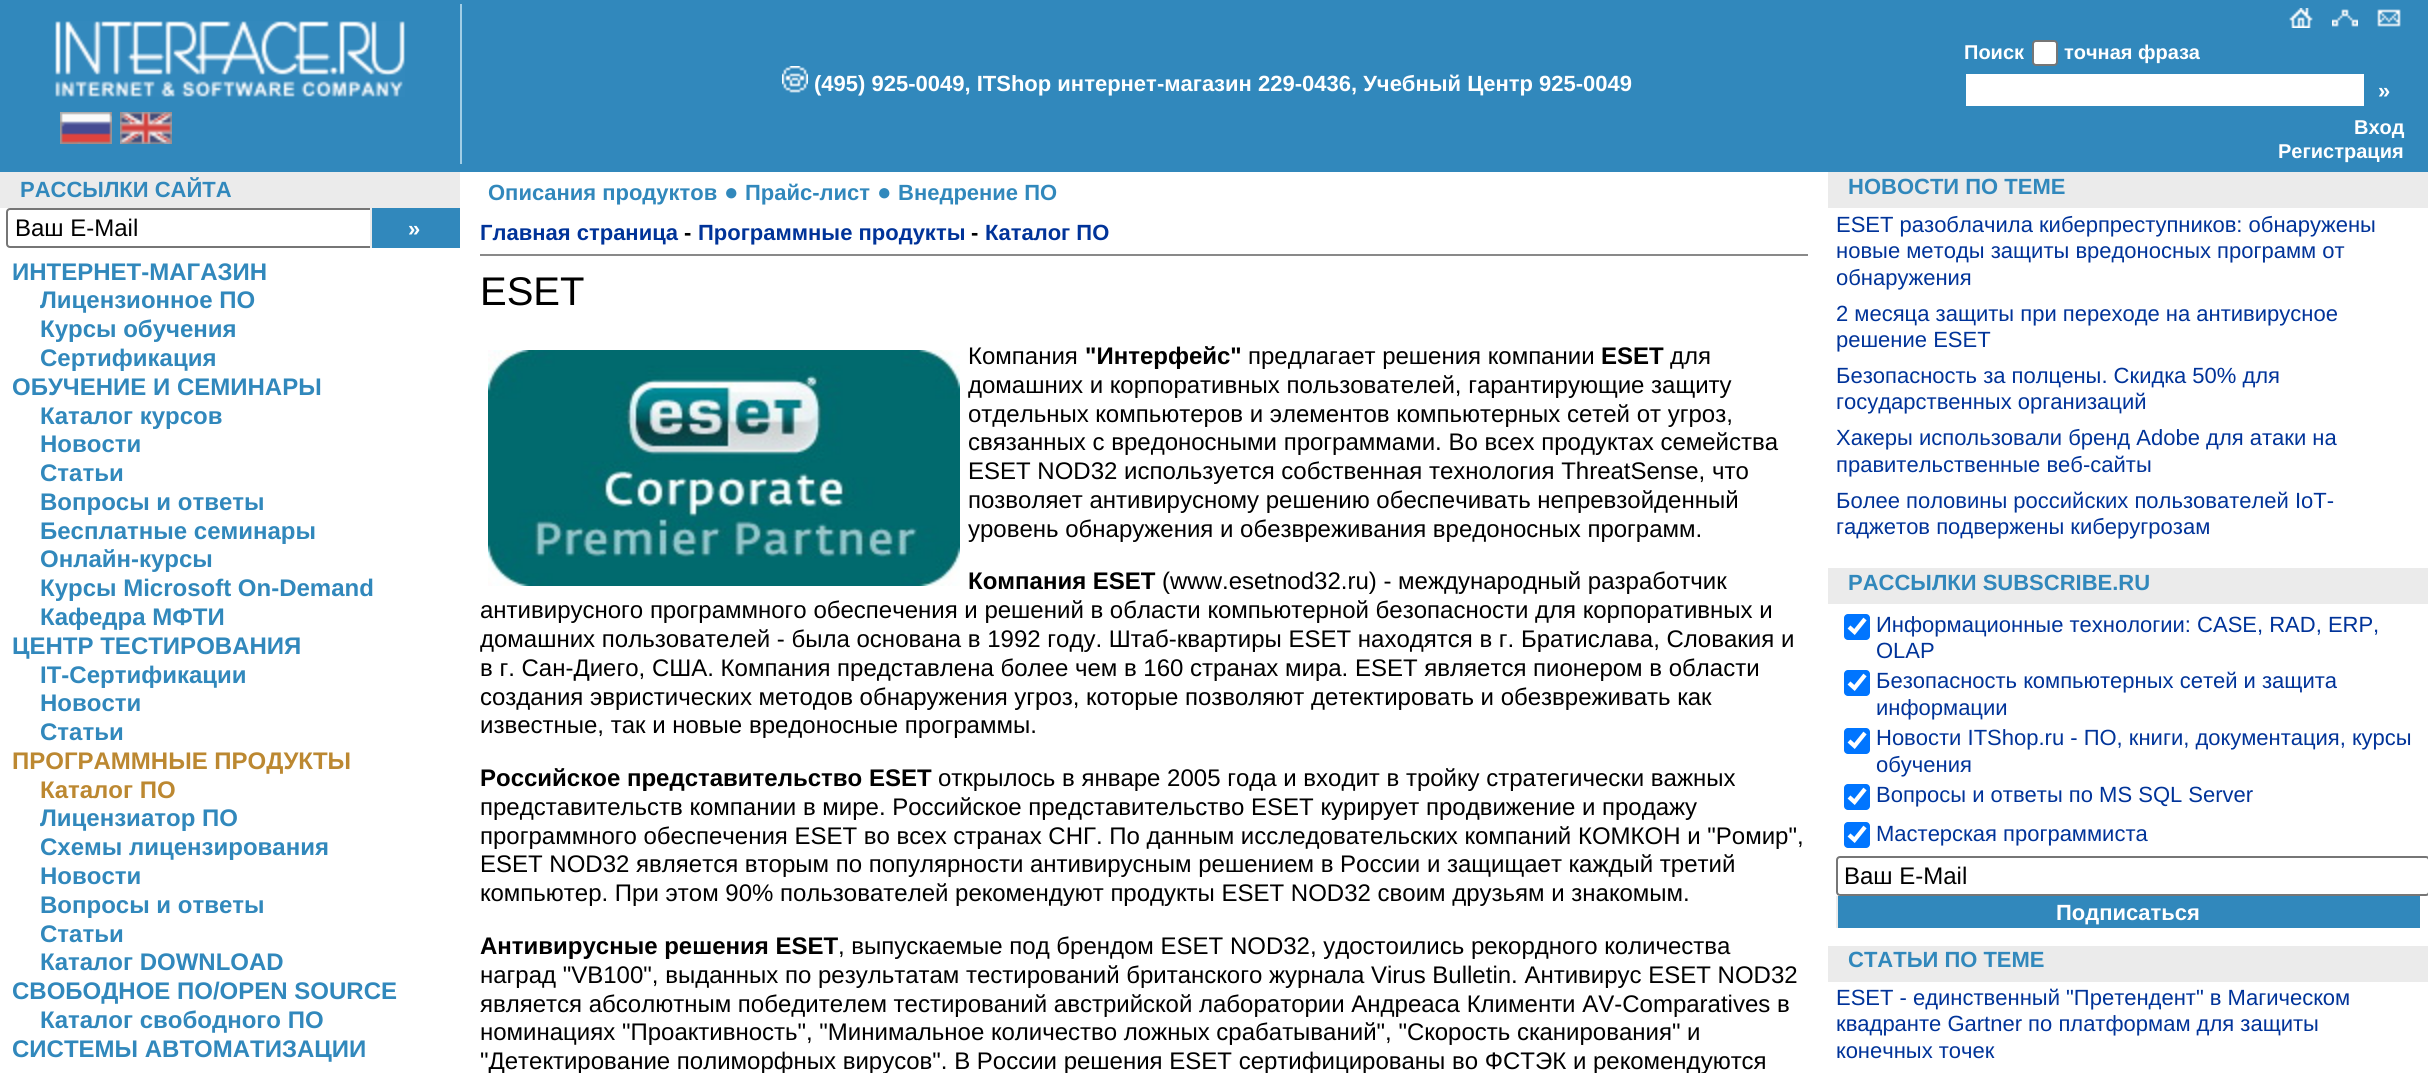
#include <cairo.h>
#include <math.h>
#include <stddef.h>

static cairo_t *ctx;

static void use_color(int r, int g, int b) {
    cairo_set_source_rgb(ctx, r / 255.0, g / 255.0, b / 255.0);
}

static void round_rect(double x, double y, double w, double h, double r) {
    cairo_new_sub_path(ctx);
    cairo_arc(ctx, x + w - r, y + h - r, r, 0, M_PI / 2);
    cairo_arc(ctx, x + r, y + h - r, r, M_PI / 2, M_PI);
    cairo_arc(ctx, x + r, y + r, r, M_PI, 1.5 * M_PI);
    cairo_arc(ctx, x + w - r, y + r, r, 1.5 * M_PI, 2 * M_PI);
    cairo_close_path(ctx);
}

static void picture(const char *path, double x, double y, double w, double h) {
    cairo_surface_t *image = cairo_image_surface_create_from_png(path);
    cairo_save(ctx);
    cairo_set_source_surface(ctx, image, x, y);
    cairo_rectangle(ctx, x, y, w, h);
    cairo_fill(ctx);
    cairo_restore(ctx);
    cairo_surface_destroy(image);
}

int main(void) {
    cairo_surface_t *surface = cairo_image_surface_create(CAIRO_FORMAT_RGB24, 2428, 1073);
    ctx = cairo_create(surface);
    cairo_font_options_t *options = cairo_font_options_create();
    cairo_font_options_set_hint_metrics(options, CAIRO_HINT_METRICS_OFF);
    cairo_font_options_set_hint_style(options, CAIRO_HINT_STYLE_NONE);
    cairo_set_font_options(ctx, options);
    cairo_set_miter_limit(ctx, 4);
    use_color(255, 255, 255);
    cairo_paint(ctx);
    use_color(49, 136, 188);
    cairo_rectangle(ctx, 0, 0, 2428, 172);
    cairo_fill(ctx);
    picture("img1.png", 55, 21, 350, 76);
    picture("img2.png", 60, 112, 52, 32);
    picture("img3.png", 120, 112, 52, 32);
    use_color(162, 206, 230);
    cairo_rectangle(ctx, 460, 4, 2, 160);
    cairo_fill(ctx);
    picture("img4.png", 782, 66, 26, 27);
    cairo_select_font_face(ctx, "Liberation Sans", CAIRO_FONT_SLANT_NORMAL, CAIRO_FONT_WEIGHT_BOLD);
    cairo_set_font_size(ctx, 22);
    use_color(255, 255, 255);
    cairo_move_to(ctx, 814, 91);
    cairo_show_text(ctx, "(495) 925-0049, ITShop интернет-магазин 229-0436, Учебный Центр 925-0049");
    picture("img5.png", 2289, 8, 24, 20);
    picture("img6.png", 2332, 9, 26, 18);
    picture("img7.png", 2377, 9, 24, 18);
    cairo_set_font_size(ctx, 20);
    cairo_move_to(ctx, 1964, 59);
    cairo_show_text(ctx, "Поиск");
    round_rect(2033, 41, 24, 24, 3);
    cairo_fill_preserve(ctx);
    use_color(118, 118, 118);
    cairo_stroke(ctx);
    use_color(255, 255, 255);
    cairo_move_to(ctx, 2064, 59);
    cairo_show_text(ctx, "точная фраза");
    cairo_rectangle(ctx, 1966, 74, 398, 32);
    cairo_fill(ctx);
    cairo_set_font_size(ctx, 22);
    cairo_move_to(ctx, 2378, 98);
    cairo_show_text(ctx, "»");
    cairo_set_font_size(ctx, 20);
    cairo_move_to(ctx, 2354, 134);
    cairo_show_text(ctx, "Вход");
    cairo_move_to(ctx, 2278, 158);
    cairo_show_text(ctx, "Регистрация");
    use_color(235, 235, 235);
    cairo_rectangle(ctx, 0, 172, 460, 36);
    cairo_fill(ctx);
    cairo_set_font_size(ctx, 22);
    use_color(49, 136, 188);
    cairo_move_to(ctx, 20, 197);
    cairo_show_text(ctx, "РАССЫЛКИ САЙТА");
    round_rect(7, 209, 374, 38, 3);
    use_color(118, 118, 118);
    cairo_stroke(ctx);
    cairo_select_font_face(ctx, "Liberation Sans", CAIRO_FONT_SLANT_NORMAL, CAIRO_FONT_WEIGHT_NORMAL);
    cairo_set_font_size(ctx, 24);
    use_color(0, 0, 0);
    cairo_move_to(ctx, 15, 236);
    cairo_show_text(ctx, "Ваш E-Mail");
    use_color(49, 136, 188);
    cairo_rectangle(ctx, 372, 208, 88, 40);
    cairo_fill(ctx);
    use_color(235, 235, 235);
    cairo_rectangle(ctx, 370, 208, 2, 40);
    cairo_fill(ctx);
    cairo_select_font_face(ctx, "Liberation Sans", CAIRO_FONT_SLANT_NORMAL, CAIRO_FONT_WEIGHT_BOLD);
    cairo_set_font_size(ctx, 22);
    use_color(255, 255, 255);
    cairo_move_to(ctx, 408, 236);
    cairo_show_text(ctx, "»");
    cairo_set_font_size(ctx, 24);
    use_color(49, 136, 188);
    cairo_move_to(ctx, 12, 280);
    cairo_show_text(ctx, "ИНТЕРНЕТ-МАГАЗИН");
    cairo_move_to(ctx, 40, 308);
    cairo_show_text(ctx, "Лицензионное ПО");
    cairo_move_to(ctx, 40, 337);
    cairo_show_text(ctx, "Курсы обучения");
    cairo_move_to(ctx, 40, 366);
    cairo_show_text(ctx, "Сертификация");
    cairo_move_to(ctx, 12, 395);
    cairo_show_text(ctx, "ОБУЧЕНИЕ И СЕМИНАРЫ");
    cairo_move_to(ctx, 40, 424);
    cairo_show_text(ctx, "Каталог курсов");
    cairo_move_to(ctx, 40, 452);
    cairo_show_text(ctx, "Новости");
    cairo_move_to(ctx, 40, 481);
    cairo_show_text(ctx, "Статьи");
    cairo_move_to(ctx, 40, 510);
    cairo_show_text(ctx, "Вопросы и ответы");
    cairo_move_to(ctx, 40, 539);
    cairo_show_text(ctx, "Бесплатные семинары");
    cairo_move_to(ctx, 40, 567);
    cairo_show_text(ctx, "Онлайн-курсы");
    cairo_move_to(ctx, 40, 596);
    cairo_show_text(ctx, "Курсы Microsoft On-Demand");
    cairo_move_to(ctx, 40, 625);
    cairo_show_text(ctx, "Кафедра МФТИ");
    cairo_move_to(ctx, 12, 654);
    cairo_show_text(ctx, "ЦЕНТР ТЕСТИРОВАНИЯ");
    cairo_move_to(ctx, 40, 683);
    cairo_show_text(ctx, "IT-Сертификации");
    cairo_move_to(ctx, 40, 711);
    cairo_show_text(ctx, "Новости");
    cairo_move_to(ctx, 40, 740);
    cairo_show_text(ctx, "Статьи");
    use_color(188, 136, 49);
    cairo_move_to(ctx, 12, 769);
    cairo_show_text(ctx, "ПРОГРАММНЫЕ ПРОДУКТЫ");
    cairo_move_to(ctx, 40, 798);
    cairo_show_text(ctx, "Каталог ПО");
    use_color(49, 136, 188);
    cairo_move_to(ctx, 40, 826);
    cairo_show_text(ctx, "Лицензиатор ПО");
    cairo_move_to(ctx, 40, 855);
    cairo_show_text(ctx, "Схемы лицензирования");
    cairo_move_to(ctx, 40, 884);
    cairo_show_text(ctx, "Новости");
    cairo_move_to(ctx, 40, 913);
    cairo_show_text(ctx, "Вопросы и ответы");
    cairo_move_to(ctx, 40, 942);
    cairo_show_text(ctx, "Статьи");
    cairo_move_to(ctx, 40, 970);
    cairo_show_text(ctx, "Каталог DOWNLOAD");
    cairo_move_to(ctx, 12, 999);
    cairo_show_text(ctx, "СВОБОДНОЕ ПО/OPEN SOURCE");
    cairo_move_to(ctx, 40, 1028);
    cairo_show_text(ctx, "Каталог свободного ПО");
    cairo_move_to(ctx, 12, 1057);
    cairo_show_text(ctx, "СИСТЕМЫ АВТОМАТИЗАЦИИ");
    cairo_set_font_size(ctx, 22);
    cairo_move_to(ctx, 488, 200);
    cairo_show_text(ctx, "Описания продуктов");
    cairo_set_font_size(ctx, 24);
    cairo_move_to(ctx, 724, 200);
    cairo_show_text(ctx, "●");
    cairo_set_font_size(ctx, 22);
    cairo_move_to(ctx, 745, 200);
    cairo_show_text(ctx, "Прайс-лист");
    cairo_set_font_size(ctx, 24);
    cairo_move_to(ctx, 877, 200);
    cairo_show_text(ctx, "●");
    cairo_set_font_size(ctx, 22);
    cairo_move_to(ctx, 898, 200);
    cairo_show_text(ctx, "Внедрение ПО");
    use_color(137, 137, 137);
    cairo_rectangle(ctx, 480, 254, 1328, 2);
    cairo_fill(ctx);
    use_color(0, 51, 153);
    cairo_move_to(ctx, 480, 240);
    cairo_show_text(ctx, "Главная страница");
    use_color(0, 0, 0);
    cairo_move_to(ctx, 684, 240);
    cairo_show_text(ctx, "-");
    use_color(0, 51, 153);
    cairo_move_to(ctx, 698, 240);
    cairo_show_text(ctx, "Программные продукты");
    use_color(0, 0, 0);
    cairo_move_to(ctx, 971, 240);
    cairo_show_text(ctx, "-");
    use_color(0, 51, 153);
    cairo_move_to(ctx, 985, 240);
    cairo_show_text(ctx, "Каталог ПО");
    cairo_select_font_face(ctx, "Liberation Sans", CAIRO_FONT_SLANT_NORMAL, CAIRO_FONT_WEIGHT_NORMAL);
    cairo_set_font_size(ctx, 40);
    use_color(0, 0, 0);
    cairo_move_to(ctx, 480, 305);
    cairo_show_text(ctx, "ESET");
    picture("img8.png", 488, 350, 472, 236);
    cairo_set_font_size(ctx, 24);
    cairo_move_to(ctx, 968, 364);
    cairo_show_text(ctx, "Компания");
    cairo_select_font_face(ctx, "Liberation Sans", CAIRO_FONT_SLANT_NORMAL, CAIRO_FONT_WEIGHT_BOLD);
    cairo_move_to(ctx, 1085, 364);
    cairo_show_text(ctx, "\"Интерфейс\"");
    cairo_select_font_face(ctx, "Liberation Sans", CAIRO_FONT_SLANT_NORMAL, CAIRO_FONT_WEIGHT_NORMAL);
    cairo_move_to(ctx, 1248, 364);
    cairo_show_text(ctx, "предлагает решения компании");
    cairo_select_font_face(ctx, "Liberation Sans", CAIRO_FONT_SLANT_NORMAL, CAIRO_FONT_WEIGHT_BOLD);
    cairo_move_to(ctx, 1601, 364);
    cairo_show_text(ctx, "ESET");
    cairo_select_font_face(ctx, "Liberation Sans", CAIRO_FONT_SLANT_NORMAL, CAIRO_FONT_WEIGHT_NORMAL);
    cairo_move_to(ctx, 1670, 364);
    cairo_show_text(ctx, "для");
    cairo_move_to(ctx, 968, 393);
    cairo_show_text(ctx, "домашних и корпоративных пользователей, гарантирующие защиту");
    cairo_move_to(ctx, 968, 422);
    cairo_show_text(ctx, "отдельных компьютеров и элементов компьютерных сетей от угроз,");
    cairo_move_to(ctx, 968, 450);
    cairo_show_text(ctx, "связанных с вредоносными программами. Во всех продуктах семейства");
    cairo_move_to(ctx, 968, 479);
    cairo_show_text(ctx, "ESET NOD32 используется собственная технология ThreatSense, что");
    cairo_move_to(ctx, 968, 508);
    cairo_show_text(ctx, "позволяет антивирусному решению обеспечивать непревзойденный");
    cairo_move_to(ctx, 968, 537);
    cairo_show_text(ctx, "уровень обнаружения и обезвреживания вредоносных программ.");
    cairo_select_font_face(ctx, "Liberation Sans", CAIRO_FONT_SLANT_NORMAL, CAIRO_FONT_WEIGHT_BOLD);
    cairo_move_to(ctx, 968, 589);
    cairo_show_text(ctx, "Компания ESET");
    cairo_select_font_face(ctx, "Liberation Sans", CAIRO_FONT_SLANT_NORMAL, CAIRO_FONT_WEIGHT_NORMAL);
    cairo_move_to(ctx, 1162, 589);
    cairo_show_text(ctx, "(www.esetnod32.ru) - международный разработчик");
    cairo_move_to(ctx, 480, 618);
    cairo_show_text(ctx, "антивирусного программного обеспечения и решений в области компьютерной безопасности для корпоративных и");
    cairo_move_to(ctx, 480, 647);
    cairo_show_text(ctx, "домашних пользователей - была основана в 1992 году. Штаб-квартиры ESET находятся в г. Братислава, Словакия и");
    cairo_move_to(ctx, 480, 676);
    cairo_show_text(ctx, "в г. Сан-Диего, США. Компания представлена более чем в 160 странах мира. ESET является пионером в области");
    cairo_move_to(ctx, 480, 705);
    cairo_show_text(ctx, "создания эвристических методов обнаружения угроз, которые позволяют детектировать и обезвреживать как");
    cairo_move_to(ctx, 480, 733);
    cairo_show_text(ctx, "известные, так и новые вредоносные программы.");
    cairo_select_font_face(ctx, "Liberation Sans", CAIRO_FONT_SLANT_NORMAL, CAIRO_FONT_WEIGHT_BOLD);
    cairo_move_to(ctx, 480, 786);
    cairo_show_text(ctx, "Российское представительство ESET");
    cairo_select_font_face(ctx, "Liberation Sans", CAIRO_FONT_SLANT_NORMAL, CAIRO_FONT_WEIGHT_NORMAL);
    cairo_move_to(ctx, 938, 786);
    cairo_show_text(ctx, "открылось в январе 2005 года и входит в тройку стратегически важных");
    cairo_move_to(ctx, 480, 815);
    cairo_show_text(ctx, "представительств компании в мире. Российское представительство ESET курирует продвижение и продажу");
    cairo_move_to(ctx, 480, 844);
    cairo_show_text(ctx, "программного обеспечения ESET во всех странах СНГ. По данным исследовательских компаний КОМКОН и \"Ромир\",");
    cairo_move_to(ctx, 480, 872);
    cairo_show_text(ctx, "ESET NOD32 является вторым по популярности антивирусным решением в России и защищает каждый третий");
    cairo_move_to(ctx, 480, 901);
    cairo_show_text(ctx, "компьютер. При этом 90% пользователей рекомендуют продукты ESET NOD32 своим друзьям и знакомым.");
    cairo_select_font_face(ctx, "Liberation Sans", CAIRO_FONT_SLANT_NORMAL, CAIRO_FONT_WEIGHT_BOLD);
    cairo_move_to(ctx, 480, 954);
    cairo_show_text(ctx, "Антивирусные решения ESET");
    cairo_select_font_face(ctx, "Liberation Sans", CAIRO_FONT_SLANT_NORMAL, CAIRO_FONT_WEIGHT_NORMAL);
    cairo_move_to(ctx, 838, 954);
    cairo_show_text(ctx, ", выпускаемые под брендом ESET NOD32, удостоились рекордного количества");
    cairo_move_to(ctx, 480, 983);
    cairo_show_text(ctx, "наград \"VB100\", выданных по результатам тестирований британского журнала Virus Bulletin. Антивирус ESET NOD32");
    cairo_move_to(ctx, 480, 1012);
    cairo_show_text(ctx, "является абсолютным победителем тестирований австрийской лаборатории Андреаса Клименти AV-Comparatives в");
    cairo_move_to(ctx, 480, 1040);
    cairo_show_text(ctx, "номинациях \"Проактивность\", \"Минимальное количество ложных срабатываний\", \"Скорость сканирования\" и");
    cairo_move_to(ctx, 480, 1069);
    cairo_show_text(ctx, "\"Детектирование полиморфных вирусов\". В России решения ESET сертифицированы во ФСТЭК и рекомендуются");
    use_color(235, 235, 235);
    cairo_rectangle(ctx, 1828, 172, 600, 36);
    cairo_fill(ctx);
    cairo_select_font_face(ctx, "Liberation Sans", CAIRO_FONT_SLANT_NORMAL, CAIRO_FONT_WEIGHT_BOLD);
    cairo_set_font_size(ctx, 22);
    use_color(49, 136, 188);
    cairo_move_to(ctx, 1848, 194);
    cairo_show_text(ctx, "НОВОСТИ ПО ТЕМЕ");
    cairo_select_font_face(ctx, "Liberation Sans", CAIRO_FONT_SLANT_NORMAL, CAIRO_FONT_WEIGHT_NORMAL);
    use_color(0, 51, 153);
    cairo_move_to(ctx, 1836, 232);
    cairo_show_text(ctx, "ESET разоблачила киберпреступников: обнаружены");
    cairo_move_to(ctx, 1836, 258);
    cairo_show_text(ctx, "новые методы защиты вредоносных программ от");
    cairo_move_to(ctx, 1836, 285);
    cairo_show_text(ctx, "обнаружения");
    cairo_move_to(ctx, 1836, 321);
    cairo_show_text(ctx, "2 месяца защиты при переходе на антивирусное");
    cairo_move_to(ctx, 1836, 347);
    cairo_show_text(ctx, "решение ESET");
    cairo_move_to(ctx, 1836, 383);
    cairo_show_text(ctx, "Безопасность за полцены. Скидка 50% для");
    cairo_move_to(ctx, 1836, 409);
    cairo_show_text(ctx, "государственных организаций");
    cairo_move_to(ctx, 1836, 445);
    cairo_show_text(ctx, "Хакеры использовали бренд Adobe для атаки на");
    cairo_move_to(ctx, 1836, 472);
    cairo_show_text(ctx, "правительственные веб-сайты");
    cairo_move_to(ctx, 1836, 508);
    cairo_show_text(ctx, "Более половины российских пользователей IoT-");
    cairo_move_to(ctx, 1836, 534);
    cairo_show_text(ctx, "гаджетов подвержены киберугрозам");
    use_color(235, 235, 235);
    cairo_rectangle(ctx, 1828, 568, 600, 36);
    cairo_fill(ctx);
    cairo_select_font_face(ctx, "Liberation Sans", CAIRO_FONT_SLANT_NORMAL, CAIRO_FONT_WEIGHT_BOLD);
    use_color(49, 136, 188);
    cairo_move_to(ctx, 1848, 590);
    cairo_show_text(ctx, "РАССЫЛКИ SUBSCRIBE.RU");
    use_color(0, 117, 255);
    round_rect(1844, 614, 26, 26, 4);
    cairo_fill(ctx);
    cairo_new_path(ctx);
    cairo_move_to(ctx, 1849, 627);
    cairo_line_to(ctx, 1854.5, 632);
    cairo_line_to(ctx, 1865, 619);
    use_color(255, 255, 255);
    cairo_set_line_width(ctx, 4.2);
    cairo_stroke(ctx);
    cairo_select_font_face(ctx, "Liberation Sans", CAIRO_FONT_SLANT_NORMAL, CAIRO_FONT_WEIGHT_NORMAL);
    use_color(0, 51, 153);
    cairo_move_to(ctx, 1876, 632);
    cairo_show_text(ctx, "Информационные технологии: CASE, RAD, ERP,");
    cairo_move_to(ctx, 1876, 658);
    cairo_show_text(ctx, "OLAP");
    use_color(0, 117, 255);
    round_rect(1844, 670, 26, 26, 4);
    cairo_fill(ctx);
    cairo_new_path(ctx);
    cairo_move_to(ctx, 1849, 683);
    cairo_line_to(ctx, 1854.5, 688);
    cairo_line_to(ctx, 1865, 675);
    use_color(255, 255, 255);
    cairo_stroke(ctx);
    use_color(0, 51, 153);
    cairo_move_to(ctx, 1876, 688);
    cairo_show_text(ctx, "Безопасность компьютерных сетей и защита");
    cairo_move_to(ctx, 1876, 715);
    cairo_show_text(ctx, "информации");
    use_color(0, 117, 255);
    round_rect(1844, 728, 26, 26, 4);
    cairo_fill(ctx);
    cairo_new_path(ctx);
    cairo_move_to(ctx, 1849, 741);
    cairo_line_to(ctx, 1854.5, 746);
    cairo_line_to(ctx, 1865, 733);
    use_color(255, 255, 255);
    cairo_stroke(ctx);
    use_color(0, 51, 153);
    cairo_move_to(ctx, 1876, 745);
    cairo_show_text(ctx, "Новости ITShop.ru - ПО, книги, документация, курсы");
    cairo_move_to(ctx, 1876, 772);
    cairo_show_text(ctx, "обучения");
    use_color(0, 117, 255);
    round_rect(1844, 784, 26, 26, 4);
    cairo_fill(ctx);
    cairo_new_path(ctx);
    cairo_move_to(ctx, 1849, 797);
    cairo_line_to(ctx, 1854.5, 802);
    cairo_line_to(ctx, 1865, 789);
    use_color(255, 255, 255);
    cairo_stroke(ctx);
    use_color(0, 51, 153);
    cairo_move_to(ctx, 1876, 802);
    cairo_show_text(ctx, "Вопросы и ответы по MS SQL Server");
    use_color(0, 117, 255);
    round_rect(1844, 822, 26, 26, 4);
    cairo_fill(ctx);
    cairo_new_path(ctx);
    cairo_move_to(ctx, 1849, 835);
    cairo_line_to(ctx, 1854.5, 840);
    cairo_line_to(ctx, 1865, 827);
    use_color(255, 255, 255);
    cairo_stroke(ctx);
    use_color(0, 51, 153);
    cairo_move_to(ctx, 1876, 841);
    cairo_show_text(ctx, "Мастерская программиста");
    round_rect(1837, 857, 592, 38, 3);
    use_color(118, 118, 118);
    cairo_set_line_width(ctx, 2);
    cairo_stroke(ctx);
    cairo_set_font_size(ctx, 24);
    use_color(0, 0, 0);
    cairo_move_to(ctx, 1844, 884);
    cairo_show_text(ctx, "Ваш E-Mail");
    use_color(49, 136, 188);
    cairo_rectangle(ctx, 1838, 896, 582, 32);
    cairo_fill(ctx);
    use_color(235, 235, 235);
    cairo_rectangle(ctx, 1836, 896, 2, 32);
    cairo_fill(ctx);
    cairo_select_font_face(ctx, "Liberation Sans", CAIRO_FONT_SLANT_NORMAL, CAIRO_FONT_WEIGHT_BOLD);
    cairo_set_font_size(ctx, 22);
    use_color(255, 255, 255);
    cairo_move_to(ctx, 2056, 920);
    cairo_show_text(ctx, "Подписаться");
    use_color(235, 235, 235);
    cairo_rectangle(ctx, 1828, 946, 600, 36);
    cairo_fill(ctx);
    use_color(49, 136, 188);
    cairo_move_to(ctx, 1848, 967);
    cairo_show_text(ctx, "СТАТЬИ ПО ТЕМЕ");
    cairo_select_font_face(ctx, "Liberation Sans", CAIRO_FONT_SLANT_NORMAL, CAIRO_FONT_WEIGHT_NORMAL);
    use_color(0, 51, 153);
    cairo_move_to(ctx, 1836, 1005);
    cairo_show_text(ctx, "ESET - единственный \"Претендент\" в Магическом");
    cairo_move_to(ctx, 1836, 1031);
    cairo_show_text(ctx, "квадранте Gartner по платформам для защиты");
    cairo_move_to(ctx, 1836, 1058);
    cairo_show_text(ctx, "конечных точек");
    cairo_surface_write_to_png(surface, "result.png");
    cairo_font_options_destroy(options);
    cairo_destroy(ctx);
    cairo_surface_destroy(surface);
    return 0;
}
